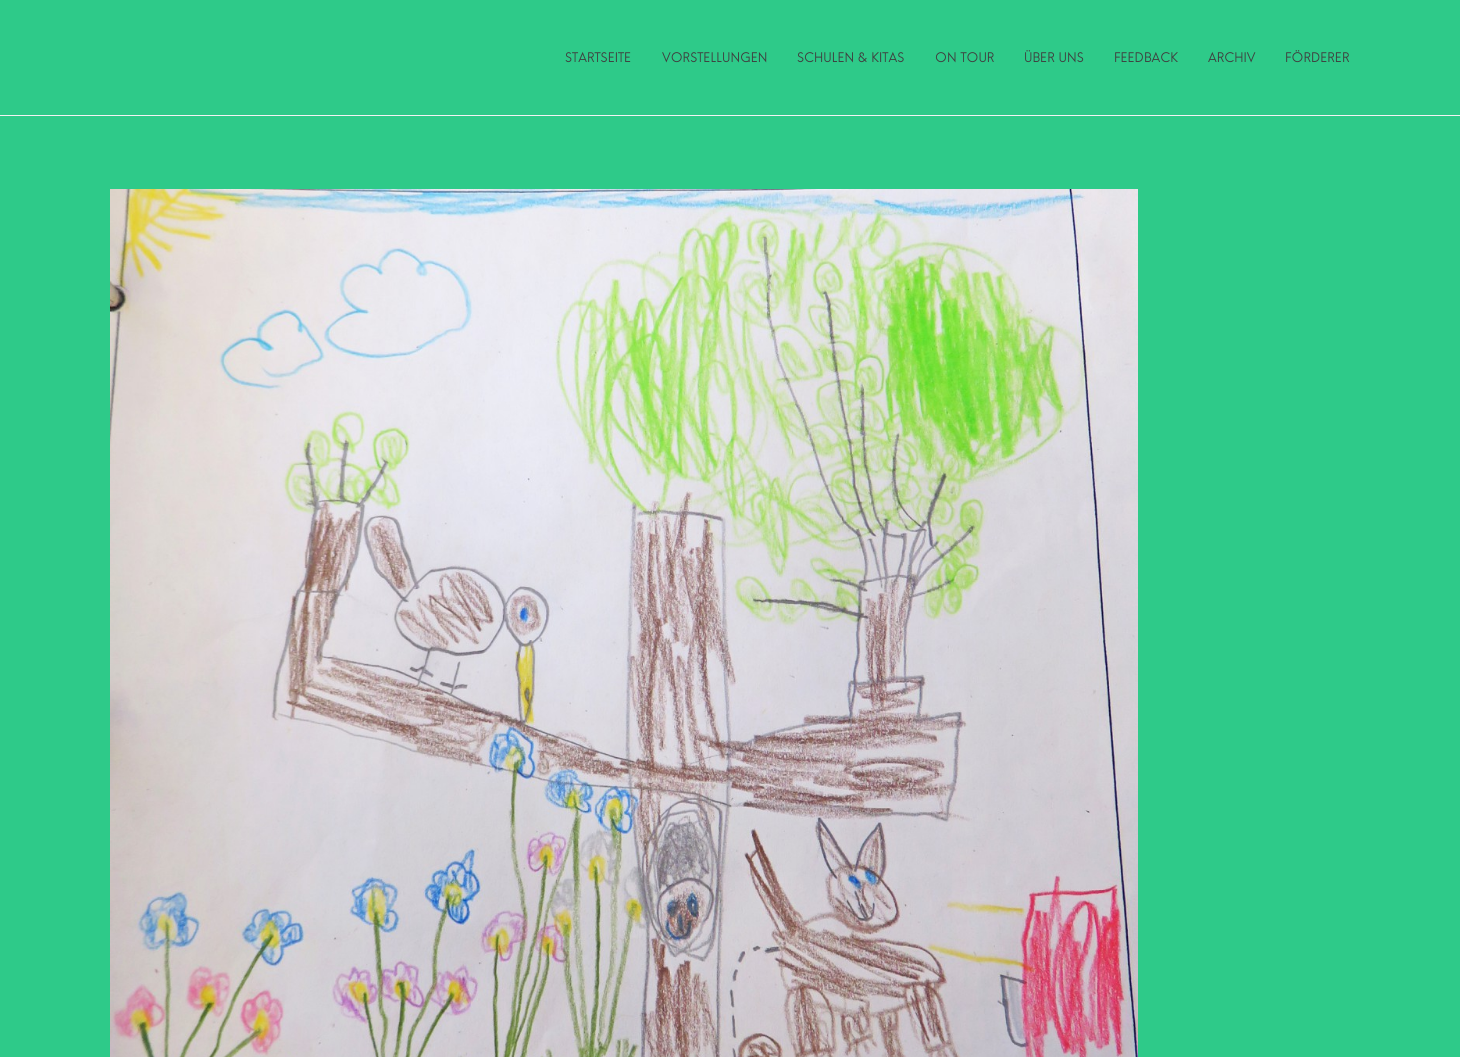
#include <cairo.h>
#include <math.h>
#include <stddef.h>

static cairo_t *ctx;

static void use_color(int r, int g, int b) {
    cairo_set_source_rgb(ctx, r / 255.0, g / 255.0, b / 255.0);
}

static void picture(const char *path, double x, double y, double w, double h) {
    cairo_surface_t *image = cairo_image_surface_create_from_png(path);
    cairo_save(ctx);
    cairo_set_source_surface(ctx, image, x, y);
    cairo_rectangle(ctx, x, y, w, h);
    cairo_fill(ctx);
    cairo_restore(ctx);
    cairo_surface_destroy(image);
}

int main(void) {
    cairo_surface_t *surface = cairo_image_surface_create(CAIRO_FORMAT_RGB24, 1460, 1057);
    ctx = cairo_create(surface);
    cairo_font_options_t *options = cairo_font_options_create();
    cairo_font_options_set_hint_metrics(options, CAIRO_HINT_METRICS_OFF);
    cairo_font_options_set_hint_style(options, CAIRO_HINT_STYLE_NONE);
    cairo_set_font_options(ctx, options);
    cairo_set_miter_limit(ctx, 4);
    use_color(46, 202, 137);
    cairo_paint(ctx);
    use_color(242, 242, 242);
    cairo_rectangle(ctx, 0, 115, 1460, 1);
    cairo_fill(ctx);
    cairo_select_font_face(ctx, "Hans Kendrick", CAIRO_FONT_SLANT_NORMAL, CAIRO_FONT_WEIGHT_NORMAL);
    cairo_set_font_size(ctx, 13);
    use_color(63, 63, 63);
    cairo_move_to(ctx, 565, 62);
    cairo_show_text(ctx, "STARTSEITE");
    cairo_move_to(ctx, 662, 62);
    cairo_show_text(ctx, "VORSTELLUNGEN");
    cairo_move_to(ctx, 797, 62);
    cairo_show_text(ctx, "SCHULEN & KITAS");
    cairo_move_to(ctx, 935, 62);
    cairo_show_text(ctx, "ON TOUR");
    cairo_move_to(ctx, 1024, 62);
    cairo_show_text(ctx, "ÜBER UNS");
    cairo_move_to(ctx, 1114, 62);
    cairo_show_text(ctx, "FEEDBACK");
    cairo_move_to(ctx, 1208, 62);
    cairo_show_text(ctx, "ARCHIV");
    cairo_move_to(ctx, 1285, 62);
    cairo_show_text(ctx, "FÖRDERER");
    picture("img1.png", 110, 189, 1028, 868);
    cairo_surface_write_to_png(surface, "result.png");
    cairo_font_options_destroy(options);
    cairo_destroy(ctx);
    cairo_surface_destroy(surface);
    return 0;
}
